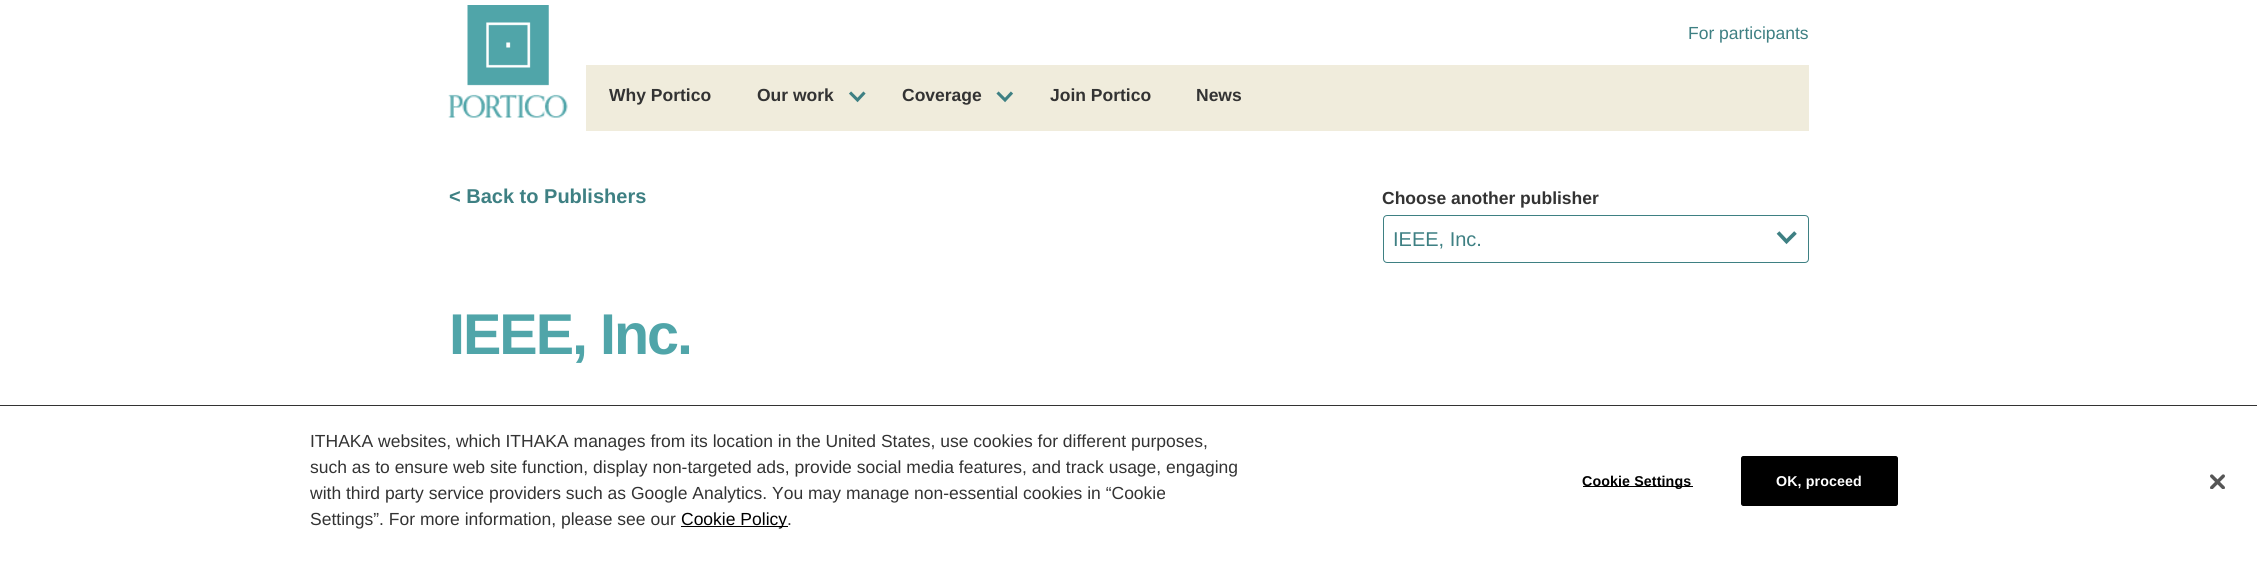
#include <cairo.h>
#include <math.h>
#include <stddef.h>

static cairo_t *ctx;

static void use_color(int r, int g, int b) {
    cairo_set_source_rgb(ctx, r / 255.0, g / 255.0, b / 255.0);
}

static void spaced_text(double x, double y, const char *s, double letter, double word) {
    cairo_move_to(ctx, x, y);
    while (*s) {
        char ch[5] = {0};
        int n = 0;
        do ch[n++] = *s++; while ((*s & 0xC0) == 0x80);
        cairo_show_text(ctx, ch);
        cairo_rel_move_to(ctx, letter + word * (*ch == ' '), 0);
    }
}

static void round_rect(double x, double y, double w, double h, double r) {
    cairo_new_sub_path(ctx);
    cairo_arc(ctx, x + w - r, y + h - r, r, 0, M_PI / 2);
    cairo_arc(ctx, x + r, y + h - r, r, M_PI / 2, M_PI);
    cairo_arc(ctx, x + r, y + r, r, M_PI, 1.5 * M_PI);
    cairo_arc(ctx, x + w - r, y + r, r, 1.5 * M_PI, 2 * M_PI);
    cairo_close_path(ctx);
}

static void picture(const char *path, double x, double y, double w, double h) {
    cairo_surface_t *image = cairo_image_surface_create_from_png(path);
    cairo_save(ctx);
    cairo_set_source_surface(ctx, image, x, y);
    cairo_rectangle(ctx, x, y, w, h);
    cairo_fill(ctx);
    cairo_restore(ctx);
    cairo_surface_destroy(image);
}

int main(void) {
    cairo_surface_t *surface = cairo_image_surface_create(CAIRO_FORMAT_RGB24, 2257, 561);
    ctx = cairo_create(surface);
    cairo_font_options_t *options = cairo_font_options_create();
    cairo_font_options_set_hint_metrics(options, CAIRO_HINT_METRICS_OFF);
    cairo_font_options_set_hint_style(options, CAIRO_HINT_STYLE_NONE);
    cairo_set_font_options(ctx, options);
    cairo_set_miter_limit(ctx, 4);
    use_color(255, 255, 255);
    cairo_paint(ctx);
    picture("img1.png", 448, 5, 120, 113);
    cairo_select_font_face(ctx, "Liberation Sans", CAIRO_FONT_SLANT_NORMAL, CAIRO_FONT_WEIGHT_NORMAL);
    cairo_set_font_size(ctx, 17.5);
    use_color(62, 128, 131);
    cairo_move_to(ctx, 1688, 39);
    cairo_show_text(ctx, "For participants");
    use_color(240, 236, 220);
    cairo_rectangle(ctx, 586, 65, 1223, 66);
    cairo_fill(ctx);
    cairo_select_font_face(ctx, "Liberation Sans", CAIRO_FONT_SLANT_NORMAL, CAIRO_FONT_WEIGHT_BOLD);
    use_color(51, 51, 51);
    cairo_move_to(ctx, 609, 101);
    cairo_show_text(ctx, "Why Portico");
    cairo_new_path(ctx);
    cairo_move_to(ctx, 850, 92.5);
    cairo_line_to(ctx, 857.5, 100);
    cairo_line_to(ctx, 864.5, 92.5);
    use_color(62, 128, 131);
    cairo_set_line_width(ctx, 3.1);
    cairo_stroke(ctx);
    use_color(51, 51, 51);
    cairo_move_to(ctx, 757, 101);
    cairo_show_text(ctx, "Our work");
    cairo_new_path(ctx);
    cairo_move_to(ctx, 997.5, 92.5);
    cairo_line_to(ctx, 1005, 100);
    cairo_line_to(ctx, 1012, 92.5);
    use_color(62, 128, 131);
    cairo_stroke(ctx);
    use_color(51, 51, 51);
    cairo_move_to(ctx, 902, 101);
    cairo_show_text(ctx, "Coverage");
    cairo_move_to(ctx, 1050, 101);
    cairo_show_text(ctx, "Join Portico");
    cairo_move_to(ctx, 1196, 101);
    cairo_show_text(ctx, "News");
    cairo_set_font_size(ctx, 20);
    use_color(62, 128, 131);
    cairo_move_to(ctx, 449, 203);
    cairo_show_text(ctx, "< Back to Publishers");
    cairo_set_font_size(ctx, 17.5);
    use_color(51, 51, 51);
    cairo_move_to(ctx, 1382, 204);
    cairo_show_text(ctx, "Choose another publisher");
    cairo_new_path(ctx);
    cairo_move_to(ctx, 1778, 232.5);
    cairo_line_to(ctx, 1786.5, 241.5);
    cairo_line_to(ctx, 1795.5, 232.5);
    use_color(62, 128, 131);
    cairo_set_line_width(ctx, 3.7);
    cairo_stroke(ctx);
    round_rect(1383.5, 215.5, 425, 47, 3.5);
    cairo_set_line_width(ctx, 1);
    cairo_stroke(ctx);
    cairo_select_font_face(ctx, "Liberation Sans", CAIRO_FONT_SLANT_NORMAL, CAIRO_FONT_WEIGHT_NORMAL);
    cairo_set_font_size(ctx, 20);
    cairo_move_to(ctx, 1393, 246);
    cairo_show_text(ctx, "IEEE, Inc.");
    cairo_select_font_face(ctx, "Liberation Sans", CAIRO_FONT_SLANT_NORMAL, CAIRO_FONT_WEIGHT_BOLD);
    cairo_set_font_size(ctx, 57.5);
    use_color(80, 165, 169);
    spaced_text(449, 354, "IEEE, Inc.", -2, 0);
    use_color(51, 51, 51);
    cairo_rectangle(ctx, 0, 405, 2257, 1);
    cairo_fill(ctx);
    cairo_select_font_face(ctx, "Liberation Sans", CAIRO_FONT_SLANT_NORMAL, CAIRO_FONT_WEIGHT_NORMAL);
    cairo_set_font_size(ctx, 17.5);
    cairo_move_to(ctx, 310, 447);
    cairo_show_text(ctx, "ITHAKA websites, which ITHAKA manages from its location in the United States, use cookies for different purposes,");
    cairo_move_to(ctx, 310, 473);
    cairo_show_text(ctx, "such as to ensure web site function, display non-targeted ads, provide social media features, and track usage, engaging");
    cairo_move_to(ctx, 310, 499);
    cairo_show_text(ctx, "with third party service providers such as Google Analytics. You may manage non-essential cookies in “Cookie");
    cairo_move_to(ctx, 310, 525);
    cairo_show_text(ctx, "Settings”. For more information, please see our");
    use_color(0, 0, 0);
    cairo_rectangle(ctx, 681, 526, 107, 1);
    cairo_fill(ctx);
    cairo_move_to(ctx, 681, 525);
    cairo_show_text(ctx, "Cookie Policy");
    use_color(51, 51, 51);
    cairo_move_to(ctx, 787, 525);
    cairo_show_text(ctx, ".");
    use_color(0, 0, 0);
    cairo_rectangle(ctx, 1583, 486, 110, 1);
    cairo_fill(ctx);
    cairo_select_font_face(ctx, "Liberation Sans", CAIRO_FONT_SLANT_NORMAL, CAIRO_FONT_WEIGHT_BOLD);
    cairo_set_font_size(ctx, 14.25);
    spaced_text(1582, 486, "Cookie Settings", 0.1, 0);
    round_rect(1741.5, 456.5, 156, 49, 2);
    cairo_fill_preserve(ctx);
    cairo_stroke(ctx);
    use_color(255, 255, 255);
    spaced_text(1776, 486, "OK, proceed", 0.1, 0);
    picture("img2.png", 2210, 474, 15, 15);
    cairo_surface_write_to_png(surface, "result.png");
    cairo_font_options_destroy(options);
    cairo_destroy(ctx);
    cairo_surface_destroy(surface);
    return 0;
}
